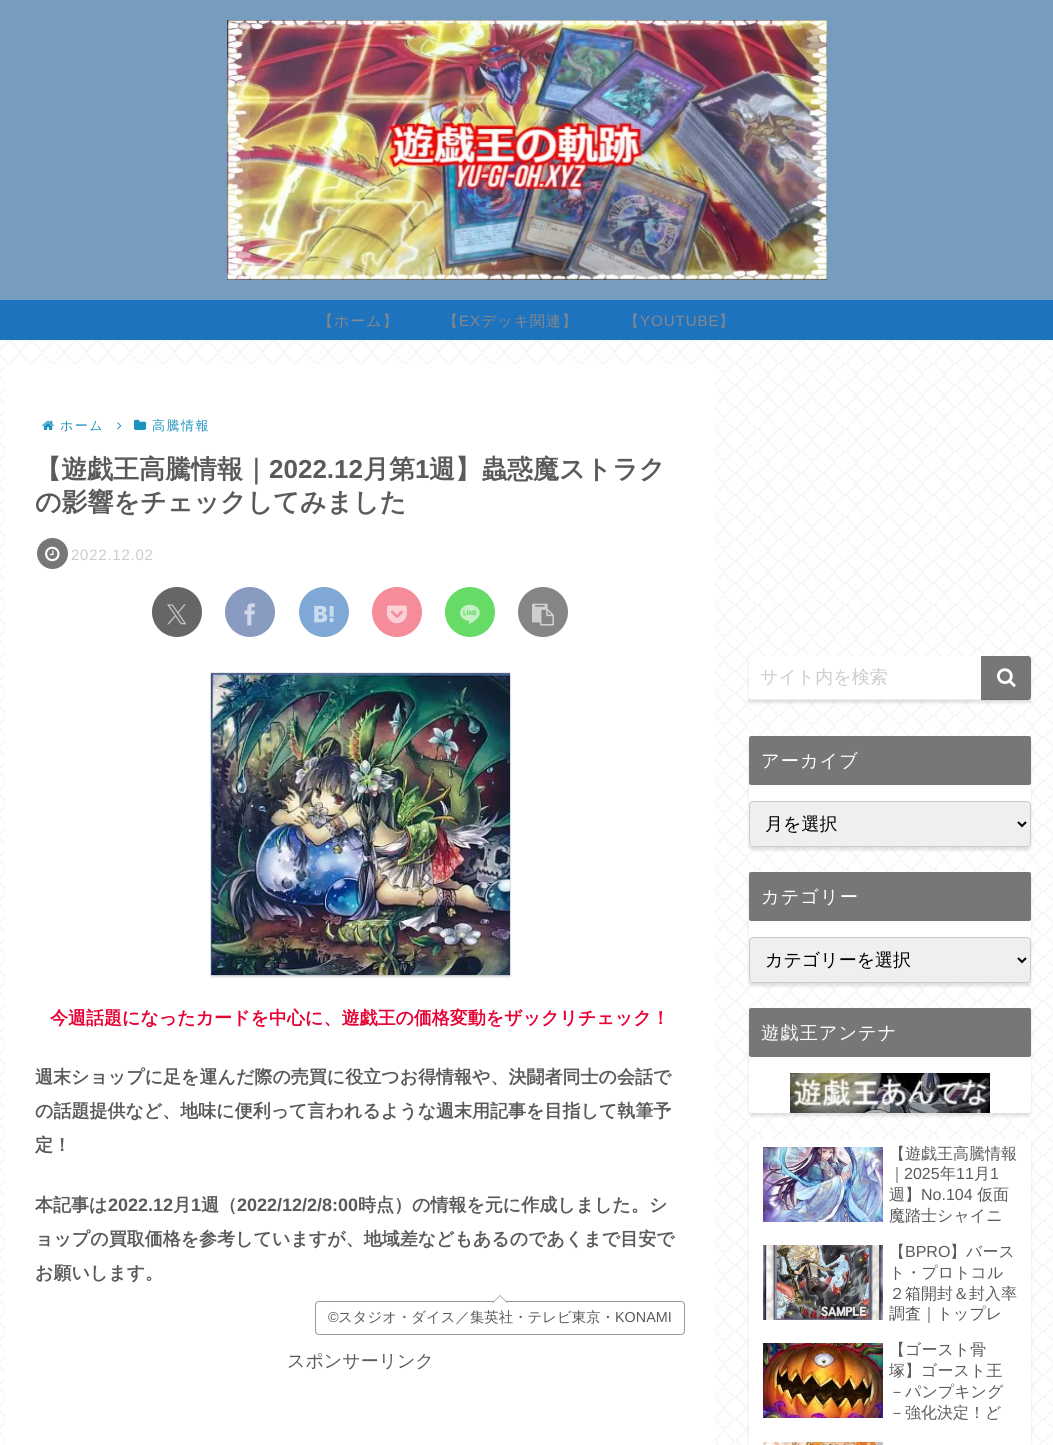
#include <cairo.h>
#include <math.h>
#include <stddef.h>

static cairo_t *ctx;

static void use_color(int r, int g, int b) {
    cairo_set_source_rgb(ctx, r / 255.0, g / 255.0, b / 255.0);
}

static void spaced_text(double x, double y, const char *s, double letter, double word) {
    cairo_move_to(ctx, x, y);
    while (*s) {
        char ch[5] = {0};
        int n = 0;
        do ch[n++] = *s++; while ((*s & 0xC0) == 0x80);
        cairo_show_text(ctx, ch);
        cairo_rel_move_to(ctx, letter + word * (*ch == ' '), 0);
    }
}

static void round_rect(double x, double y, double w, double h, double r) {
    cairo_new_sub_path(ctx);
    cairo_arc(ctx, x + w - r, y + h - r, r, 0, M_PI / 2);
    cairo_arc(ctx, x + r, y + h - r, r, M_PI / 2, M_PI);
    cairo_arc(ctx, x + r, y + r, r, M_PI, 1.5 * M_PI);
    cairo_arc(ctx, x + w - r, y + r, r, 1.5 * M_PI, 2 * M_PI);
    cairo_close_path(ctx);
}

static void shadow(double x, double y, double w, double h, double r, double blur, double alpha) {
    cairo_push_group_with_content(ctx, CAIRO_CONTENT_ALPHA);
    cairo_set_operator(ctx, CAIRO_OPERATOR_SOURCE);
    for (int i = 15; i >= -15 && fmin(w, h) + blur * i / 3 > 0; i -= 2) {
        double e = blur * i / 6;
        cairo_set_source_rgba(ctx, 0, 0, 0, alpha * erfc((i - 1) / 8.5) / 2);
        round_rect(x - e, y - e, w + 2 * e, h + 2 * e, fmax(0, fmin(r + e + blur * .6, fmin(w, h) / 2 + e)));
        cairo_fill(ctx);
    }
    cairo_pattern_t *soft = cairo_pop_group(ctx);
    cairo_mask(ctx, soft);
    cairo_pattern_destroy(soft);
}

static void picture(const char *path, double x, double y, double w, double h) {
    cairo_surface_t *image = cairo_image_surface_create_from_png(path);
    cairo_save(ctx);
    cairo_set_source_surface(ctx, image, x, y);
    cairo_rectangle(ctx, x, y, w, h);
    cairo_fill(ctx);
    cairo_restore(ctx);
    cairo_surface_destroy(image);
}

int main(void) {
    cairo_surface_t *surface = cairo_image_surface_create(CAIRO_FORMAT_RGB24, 1053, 1445);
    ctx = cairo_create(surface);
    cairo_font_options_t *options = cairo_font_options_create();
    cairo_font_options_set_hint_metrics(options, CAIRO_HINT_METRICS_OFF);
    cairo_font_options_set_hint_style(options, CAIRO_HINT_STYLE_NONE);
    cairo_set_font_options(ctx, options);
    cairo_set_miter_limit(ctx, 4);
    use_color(255, 255, 255);
    cairo_paint(ctx);
    picture("img1.png", 0, 340, 1053, 1105);
    use_color(118, 156, 191);
    cairo_rectangle(ctx, 0, 0, 1053, 300);
    cairo_fill(ctx);
    picture("img2.png", 227, 20, 600, 260);
    use_color(30, 115, 190);
    cairo_rectangle(ctx, 0, 300, 1053, 40);
    cairo_fill(ctx);
    cairo_select_font_face(ctx, "WenQuanYi Zen Hei Medium", CAIRO_FONT_SLANT_NORMAL, CAIRO_FONT_WEIGHT_NORMAL);
    cairo_set_font_size(ctx, 15);
    use_color(136, 136, 136);
    spaced_text(318, 326, "【ホーム】", 1, 0);
    spaced_text(443, 326, "【", 1, 0);
    cairo_select_font_face(ctx, "Liberation Sans", CAIRO_FONT_SLANT_NORMAL, CAIRO_FONT_WEIGHT_NORMAL);
    spaced_text(459, 326, "EX", 1, 0);
    cairo_select_font_face(ctx, "WenQuanYi Zen Hei Medium", CAIRO_FONT_SLANT_NORMAL, CAIRO_FONT_WEIGHT_NORMAL);
    spaced_text(481, 326, "デッキ関連】", 1, 0);
    spaced_text(624, 326, "【", 1, 0);
    cairo_select_font_face(ctx, "Liberation Sans", CAIRO_FONT_SLANT_NORMAL, CAIRO_FONT_WEIGHT_NORMAL);
    spaced_text(640, 326, "YOUTUBE", 1, 0);
    cairo_select_font_face(ctx, "WenQuanYi Zen Hei Medium", CAIRO_FONT_SLANT_NORMAL, CAIRO_FONT_WEIGHT_NORMAL);
    spaced_text(719, 326, "】", 1, 0);
    use_color(255, 255, 255);
    round_rect(5, 364, 710, 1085, 4);
    cairo_fill(ctx);
    picture("img3.png", 42, 420, 12, 10);
    cairo_set_font_size(ctx, 13);
    use_color(30, 146, 191);
    spaced_text(60, 430, "ホーム", 1.5, 0);
    picture("img4.png", 117, 422, 5, 8);
    picture("img5.png", 134, 419, 13, 11);
    spaced_text(152, 430, "高騰情報", 1.5, 0);
    cairo_select_font_face(ctx, "WenQuanYi Zen Hei", CAIRO_FONT_SLANT_NORMAL, CAIRO_FONT_WEIGHT_BOLD);
    cairo_set_font_size(ctx, 26);
    use_color(90, 90, 90);
    cairo_move_to(ctx, 35, 478);
    cairo_show_text(ctx, "【遊戯王高騰情報｜");
    cairo_select_font_face(ctx, "Liberation Sans", CAIRO_FONT_SLANT_NORMAL, CAIRO_FONT_WEIGHT_BOLD);
    cairo_move_to(ctx, 269, 478);
    cairo_show_text(ctx, "2022.12");
    cairo_select_font_face(ctx, "WenQuanYi Zen Hei", CAIRO_FONT_SLANT_NORMAL, CAIRO_FONT_WEIGHT_BOLD);
    cairo_move_to(ctx, 363, 478);
    cairo_show_text(ctx, "月第");
    cairo_select_font_face(ctx, "Liberation Sans", CAIRO_FONT_SLANT_NORMAL, CAIRO_FONT_WEIGHT_BOLD);
    cairo_move_to(ctx, 415, 478);
    cairo_show_text(ctx, "1");
    cairo_select_font_face(ctx, "WenQuanYi Zen Hei", CAIRO_FONT_SLANT_NORMAL, CAIRO_FONT_WEIGHT_BOLD);
    cairo_move_to(ctx, 429, 478);
    cairo_show_text(ctx, "週】蟲惑魔ストラク");
    cairo_move_to(ctx, 35, 511);
    cairo_show_text(ctx, "の影響をチェックしてみました");
    use_color(119, 119, 119);
    cairo_new_path(ctx);
    cairo_arc(ctx, 52.5, 553.5, 15.5, 0, 2 * M_PI);
    cairo_fill(ctx);
    picture("img6.png", 45, 546, 15, 16);
    cairo_select_font_face(ctx, "Liberation Sans", CAIRO_FONT_SLANT_NORMAL, CAIRO_FONT_WEIGHT_NORMAL);
    cairo_set_font_size(ctx, 15);
    use_color(204, 204, 204);
    spaced_text(71, 560, "2022.12.02", 0.75, 0);
    use_color(102, 102, 102);
    cairo_new_path(ctx);
    cairo_arc(ctx, 177, 612, 25, 0, 2 * M_PI);
    cairo_fill(ctx);
    picture("img7.png", 167, 604, 20, 21);
    use_color(137, 155, 193);
    cairo_arc(ctx, 250, 612, 25, 0, 2 * M_PI);
    cairo_fill(ctx);
    picture("img8.png", 244, 603, 11, 23);
    use_color(128, 168, 215);
    cairo_arc(ctx, 324, 612, 25, 0, 2 * M_PI);
    cairo_fill(ctx);
    picture("img9.png", 314, 605, 20, 18);
    use_color(245, 140, 154);
    cairo_arc(ctx, 397, 612, 25, 0, 2 * M_PI);
    cairo_fill(ctx);
    picture("img10.png", 387, 605, 20, 19);
    use_color(102, 219, 102);
    cairo_arc(ctx, 470, 612, 25, 0, 2 * M_PI);
    cairo_fill(ctx);
    picture("img11.png", 460, 604, 20, 20);
    use_color(133, 133, 133);
    cairo_arc(ctx, 543, 612, 25, 0, 2 * M_PI);
    cairo_fill(ctx);
    picture("img12.png", 532, 603, 22, 23);
    cairo_rectangle(ctx, 210.5, 672.5, 300, 303);
    use_color(235, 235, 235);
    cairo_set_line_width(ctx, 1);
    cairo_stroke(ctx);
    use_color(0, 0, 0);
    shadow(211, 675, 299, 302, 0, 1, 0.16);
    picture("img13.png", 211, 673, 299, 302);
    cairo_select_font_face(ctx, "WenQuanYi Zen Hei", CAIRO_FONT_SLANT_NORMAL, CAIRO_FONT_WEIGHT_BOLD);
    cairo_set_font_size(ctx, 18);
    use_color(230, 0, 51);
    cairo_move_to(ctx, 50, 1024);
    cairo_show_text(ctx, "今週話題になったカードを中心に、遊戯王の価格変動をザックリチェック！");
    use_color(90, 90, 90);
    cairo_move_to(ctx, 35, 1083);
    cairo_show_text(ctx, "週末ショップに足を運んだ際の売買に役立つお得情報や、決闘者同士の会話で");
    cairo_move_to(ctx, 35, 1117);
    cairo_show_text(ctx, "の話題提供など、地味に便利って言われるような週末用記事を目指して執筆予");
    cairo_move_to(ctx, 35, 1151);
    cairo_show_text(ctx, "定！");
    cairo_move_to(ctx, 35, 1211);
    cairo_show_text(ctx, "本記事は");
    cairo_select_font_face(ctx, "Liberation Sans", CAIRO_FONT_SLANT_NORMAL, CAIRO_FONT_WEIGHT_BOLD);
    cairo_move_to(ctx, 108, 1211);
    cairo_show_text(ctx, "2022.12");
    cairo_select_font_face(ctx, "WenQuanYi Zen Hei", CAIRO_FONT_SLANT_NORMAL, CAIRO_FONT_WEIGHT_BOLD);
    cairo_move_to(ctx, 173, 1211);
    cairo_show_text(ctx, "月");
    cairo_select_font_face(ctx, "Liberation Sans", CAIRO_FONT_SLANT_NORMAL, CAIRO_FONT_WEIGHT_BOLD);
    cairo_move_to(ctx, 191, 1211);
    cairo_show_text(ctx, "1");
    cairo_select_font_face(ctx, "WenQuanYi Zen Hei", CAIRO_FONT_SLANT_NORMAL, CAIRO_FONT_WEIGHT_BOLD);
    cairo_move_to(ctx, 201, 1211);
    cairo_show_text(ctx, "週（");
    cairo_select_font_face(ctx, "Liberation Sans", CAIRO_FONT_SLANT_NORMAL, CAIRO_FONT_WEIGHT_BOLD);
    cairo_move_to(ctx, 237, 1211);
    cairo_show_text(ctx, "2022/12/2/8:00");
    cairo_select_font_face(ctx, "WenQuanYi Zen Hei", CAIRO_FONT_SLANT_NORMAL, CAIRO_FONT_WEIGHT_BOLD);
    cairo_move_to(ctx, 358, 1211);
    cairo_show_text(ctx, "時点）の情報を元に作成しました。シ");
    cairo_move_to(ctx, 35, 1245);
    cairo_show_text(ctx, "ョップの買取価格を参考していますが、地域差などもあるのであくまで目安で");
    cairo_move_to(ctx, 35, 1279);
    cairo_show_text(ctx, "お願いします。");
    round_rect(315.5, 1301.5, 369, 33, 3.5);
    use_color(153, 153, 153);
    cairo_stroke(ctx);
    cairo_new_path(ctx);
    cairo_move_to(ctx, 508, 1303);
    cairo_line_to(ctx, 492, 1303);
    cairo_line_to(ctx, 500, 1295);
    cairo_close_path(ctx);
    cairo_fill(ctx);
    use_color(255, 255, 255);
    cairo_new_path(ctx);
    cairo_move_to(ctx, 507, 1303);
    cairo_line_to(ctx, 493, 1303);
    cairo_line_to(ctx, 500, 1296);
    cairo_close_path(ctx);
    cairo_fill(ctx);
    cairo_select_font_face(ctx, "Liberation Sans", CAIRO_FONT_SLANT_NORMAL, CAIRO_FONT_WEIGHT_NORMAL);
    cairo_set_font_size(ctx, 14.4);
    use_color(90, 90, 90);
    cairo_move_to(ctx, 328, 1322);
    cairo_show_text(ctx, "©");
    cairo_select_font_face(ctx, "WenQuanYi Zen Hei Medium", CAIRO_FONT_SLANT_NORMAL, CAIRO_FONT_WEIGHT_NORMAL);
    cairo_move_to(ctx, 338, 1322);
    cairo_show_text(ctx, "スタジオ・ダイス／集英社・テレビ東京・");
    cairo_select_font_face(ctx, "Liberation Sans", CAIRO_FONT_SLANT_NORMAL, CAIRO_FONT_WEIGHT_NORMAL);
    cairo_move_to(ctx, 615, 1322);
    cairo_show_text(ctx, "KONAMI");
    cairo_select_font_face(ctx, "WenQuanYi Zen Hei Medium", CAIRO_FONT_SLANT_NORMAL, CAIRO_FONT_WEIGHT_NORMAL);
    cairo_set_font_size(ctx, 18);
    cairo_move_to(ctx, 287, 1367);
    cairo_show_text(ctx, "スポンサーリンク");
    use_color(0, 0, 0);
    shadow(749, 659, 282, 44, 0, 1.5, 0.12);
    use_color(255, 255, 255);
    round_rect(749, 656, 282, 44, 4);
    cairo_fill(ctx);
    use_color(239, 239, 239);
    cairo_rectangle(ctx, 751, 699, 278, 1);
    cairo_fill(ctx);
    use_color(204, 204, 204);
    cairo_move_to(ctx, 760, 683);
    cairo_show_text(ctx, "サイト内を検索");
    use_color(119, 119, 119);
    cairo_new_path(ctx);
    cairo_move_to(ctx, 981, 656);
    cairo_line_to(ctx, 1028, 656);
    cairo_curve_to(ctx, 1029.5, 656, 1031, 657.5, 1031, 659);
    cairo_line_to(ctx, 1031, 697);
    cairo_curve_to(ctx, 1031, 698.5, 1029.5, 700, 1028, 700);
    cairo_line_to(ctx, 981, 700);
    cairo_close_path(ctx);
    cairo_fill(ctx);
    cairo_set_source_rgba(ctx, 0, 0, 0, 0.1);
    cairo_rectangle(ctx, 981, 699, 49, 1);
    cairo_fill(ctx);
    picture("img14.png", 997, 668, 19, 19);
    use_color(0, 0, 0);
    shadow(749, 739, 282, 111, 3, 1.5, 0.12);
    use_color(255, 255, 255);
    round_rect(749, 736, 282, 111, 3);
    cairo_fill(ctx);
    use_color(119, 119, 119);
    round_rect(749, 736, 282, 49, 2);
    cairo_fill(ctx);
    cairo_set_font_size(ctx, 18.25);
    use_color(255, 255, 255);
    spaced_text(761, 767, "アーカイブ", 1, 0);
    use_color(239, 239, 239);
    round_rect(749.5, 801.5, 281, 45, 3.5);
    cairo_fill_preserve(ctx);
    use_color(204, 204, 204);
    cairo_stroke(ctx);
    cairo_new_path(ctx);
    cairo_move_to(ctx, 1018, 822);
    cairo_line_to(ctx, 1022, 826);
    cairo_line_to(ctx, 1026, 822);
    use_color(0, 0, 0);
    cairo_set_line_width(ctx, 2);
    cairo_stroke(ctx);
    cairo_set_font_size(ctx, 18);
    cairo_move_to(ctx, 765, 830);
    cairo_show_text(ctx, "月を選択");
    use_color(0, 0, 0);
    shadow(749, 875, 282, 111, 3, 1.5, 0.12);
    use_color(255, 255, 255);
    round_rect(749, 872, 282, 111, 3);
    cairo_fill(ctx);
    use_color(119, 119, 119);
    round_rect(749, 872, 282, 49, 2);
    cairo_fill(ctx);
    cairo_set_font_size(ctx, 18.25);
    use_color(255, 255, 255);
    spaced_text(761, 903, "カテゴリー", 1, 0);
    use_color(239, 239, 239);
    round_rect(749.5, 937.5, 281, 45, 3.5);
    cairo_fill_preserve(ctx);
    use_color(204, 204, 204);
    cairo_set_line_width(ctx, 1);
    cairo_stroke(ctx);
    cairo_new_path(ctx);
    cairo_move_to(ctx, 1018, 958);
    cairo_line_to(ctx, 1022, 962);
    cairo_line_to(ctx, 1026, 958);
    use_color(0, 0, 0);
    cairo_set_line_width(ctx, 2);
    cairo_stroke(ctx);
    cairo_set_font_size(ctx, 18);
    cairo_move_to(ctx, 765, 966);
    cairo_show_text(ctx, "カテゴリーを選択");
    use_color(0, 0, 0);
    shadow(749, 1011, 282, 105, 3, 1.5, 0.12);
    use_color(255, 255, 255);
    round_rect(749, 1008, 282, 105, 3);
    cairo_fill(ctx);
    use_color(119, 119, 119);
    round_rect(749, 1008, 282, 49, 2);
    cairo_fill(ctx);
    cairo_set_font_size(ctx, 18.25);
    use_color(255, 255, 255);
    spaced_text(761, 1039, "遊戯王アンテナ", 1, 0);
    picture("img15.png", 790, 1073, 200, 40);
    use_color(0, 0, 0);
    shadow(749, 1142, 282, 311, 3, 1.5, 0.12);
    use_color(255, 255, 255);
    round_rect(749, 1139, 282, 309, 3);
    cairo_fill(ctx);
    picture("img16.png", 763, 1147, 120, 75);
    cairo_set_font_size(ctx, 16);
    use_color(90, 90, 90);
    cairo_move_to(ctx, 889, 1159);
    cairo_show_text(ctx, "【遊戯王高騰情報");
    cairo_move_to(ctx, 889, 1179);
    cairo_show_text(ctx, "｜");
    cairo_select_font_face(ctx, "Liberation Sans", CAIRO_FONT_SLANT_NORMAL, CAIRO_FONT_WEIGHT_NORMAL);
    cairo_move_to(ctx, 904, 1179);
    cairo_show_text(ctx, "2025");
    cairo_select_font_face(ctx, "WenQuanYi Zen Hei Medium", CAIRO_FONT_SLANT_NORMAL, CAIRO_FONT_WEIGHT_NORMAL);
    cairo_move_to(ctx, 940, 1179);
    cairo_show_text(ctx, "年");
    cairo_select_font_face(ctx, "Liberation Sans", CAIRO_FONT_SLANT_NORMAL, CAIRO_FONT_WEIGHT_NORMAL);
    cairo_move_to(ctx, 956, 1179);
    cairo_show_text(ctx, "11");
    cairo_select_font_face(ctx, "WenQuanYi Zen Hei Medium", CAIRO_FONT_SLANT_NORMAL, CAIRO_FONT_WEIGHT_NORMAL);
    cairo_move_to(ctx, 974, 1179);
    cairo_show_text(ctx, "月");
    cairo_select_font_face(ctx, "Liberation Sans", CAIRO_FONT_SLANT_NORMAL, CAIRO_FONT_WEIGHT_NORMAL);
    cairo_move_to(ctx, 990, 1179);
    cairo_show_text(ctx, "1");
    cairo_select_font_face(ctx, "WenQuanYi Zen Hei Medium", CAIRO_FONT_SLANT_NORMAL, CAIRO_FONT_WEIGHT_NORMAL);
    cairo_move_to(ctx, 889, 1200);
    cairo_show_text(ctx, "週】");
    cairo_select_font_face(ctx, "Liberation Sans", CAIRO_FONT_SLANT_NORMAL, CAIRO_FONT_WEIGHT_NORMAL);
    cairo_move_to(ctx, 921, 1200);
    cairo_show_text(ctx, "No.104");
    cairo_select_font_face(ctx, "WenQuanYi Zen Hei Medium", CAIRO_FONT_SLANT_NORMAL, CAIRO_FONT_WEIGHT_NORMAL);
    cairo_move_to(ctx, 977, 1200);
    cairo_show_text(ctx, "仮面");
    cairo_move_to(ctx, 889, 1221);
    cairo_show_text(ctx, "魔踏士シャイニ");
    picture("img17.png", 763, 1245, 120, 75);
    cairo_move_to(ctx, 889, 1257);
    cairo_show_text(ctx, "【");
    cairo_select_font_face(ctx, "Liberation Sans", CAIRO_FONT_SLANT_NORMAL, CAIRO_FONT_WEIGHT_NORMAL);
    cairo_move_to(ctx, 905, 1257);
    cairo_show_text(ctx, "BPRO");
    cairo_select_font_face(ctx, "WenQuanYi Zen Hei Medium", CAIRO_FONT_SLANT_NORMAL, CAIRO_FONT_WEIGHT_NORMAL);
    cairo_move_to(ctx, 950, 1257);
    cairo_show_text(ctx, "】バース");
    cairo_move_to(ctx, 889, 1278);
    cairo_show_text(ctx, "ト・プロトコル");
    cairo_move_to(ctx, 889, 1299);
    cairo_show_text(ctx, "２箱開封＆封入率");
    cairo_move_to(ctx, 889, 1319);
    cairo_show_text(ctx, "調査｜トップレ");
    picture("img18.png", 763, 1343, 120, 75);
    cairo_move_to(ctx, 889, 1355);
    cairo_show_text(ctx, "【ゴースト骨");
    cairo_move_to(ctx, 889, 1376);
    cairo_show_text(ctx, "塚】ゴースト王");
    cairo_move_to(ctx, 889, 1397);
    cairo_show_text(ctx, "－パンプキング");
    cairo_move_to(ctx, 889, 1418);
    cairo_show_text(ctx, "－強化決定！ど");
    picture("img19.png", 763, 1442, 120, 3);
    cairo_surface_write_to_png(surface, "result.png");
    cairo_font_options_destroy(options);
    cairo_destroy(ctx);
    cairo_surface_destroy(surface);
    return 0;
}
